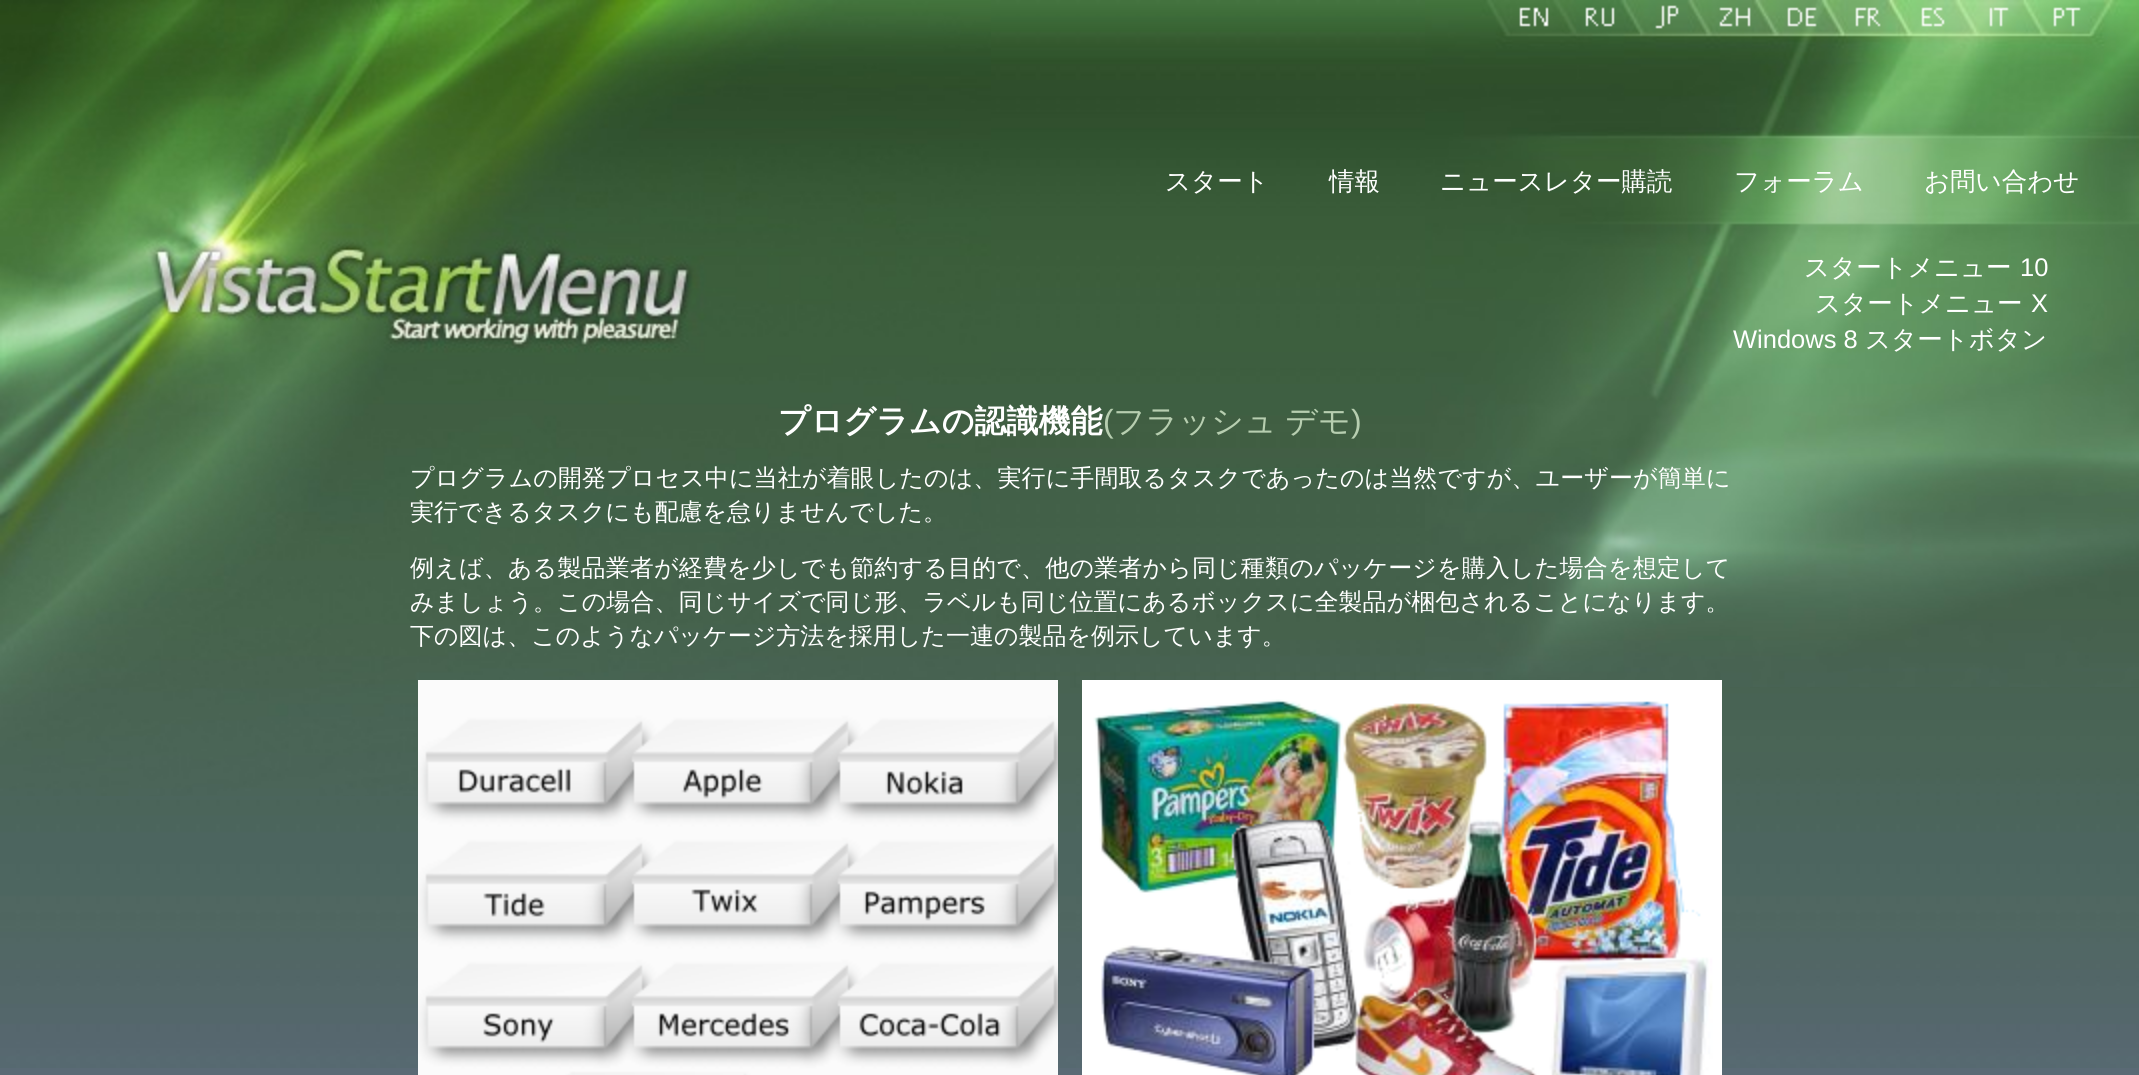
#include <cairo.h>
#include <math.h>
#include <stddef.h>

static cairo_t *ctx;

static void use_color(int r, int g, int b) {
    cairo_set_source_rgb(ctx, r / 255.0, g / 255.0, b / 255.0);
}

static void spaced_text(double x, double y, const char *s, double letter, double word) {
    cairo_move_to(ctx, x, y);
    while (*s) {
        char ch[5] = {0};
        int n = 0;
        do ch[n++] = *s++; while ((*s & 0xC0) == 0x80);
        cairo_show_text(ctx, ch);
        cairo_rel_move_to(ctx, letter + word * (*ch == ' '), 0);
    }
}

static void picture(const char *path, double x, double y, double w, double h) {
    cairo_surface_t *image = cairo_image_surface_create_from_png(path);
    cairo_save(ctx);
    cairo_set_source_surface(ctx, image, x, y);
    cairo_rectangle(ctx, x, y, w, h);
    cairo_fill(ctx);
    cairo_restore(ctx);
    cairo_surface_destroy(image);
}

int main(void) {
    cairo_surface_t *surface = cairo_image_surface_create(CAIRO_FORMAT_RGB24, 2139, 1075);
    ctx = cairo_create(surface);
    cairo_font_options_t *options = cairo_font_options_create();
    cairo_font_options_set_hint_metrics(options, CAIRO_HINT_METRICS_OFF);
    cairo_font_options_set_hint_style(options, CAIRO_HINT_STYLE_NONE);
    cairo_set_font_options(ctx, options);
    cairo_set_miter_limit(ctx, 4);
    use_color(90, 106, 117);
    cairo_paint(ctx);
    picture("img1.png", 0, 0, 2139, 1068);
    picture("img12.png", 1425, 0, 714, 687);
    picture("img2.png", 1519, 7, 30, 20);
    picture("img3.png", 1585, 7, 30, 20);
    picture("img4.png", 1655, 5, 24, 24);
    picture("img5.png", 1719, 7, 32, 20);
    picture("img6.png", 1787, 7, 30, 20);
    picture("img7.png", 1855, 7, 26, 20);
    picture("img8.png", 1921, 7, 24, 20);
    picture("img9.png", 1989, 7, 20, 20);
    picture("img10.png", 2053, 7, 28, 20);
    cairo_select_font_face(ctx, "WenQuanYi Zen Hei Medium", CAIRO_FONT_SLANT_NORMAL, CAIRO_FONT_WEIGHT_NORMAL);
    cairo_set_font_size(ctx, 25.5);
    use_color(255, 255, 255);
    cairo_move_to(ctx, 1165, 190);
    cairo_show_text(ctx, "スタート");
    cairo_move_to(ctx, 1329, 190);
    cairo_show_text(ctx, "情報");
    cairo_move_to(ctx, 1440, 190);
    cairo_show_text(ctx, "ニュースレター購読");
    cairo_move_to(ctx, 1734, 190);
    cairo_show_text(ctx, "フォーラム");
    cairo_move_to(ctx, 1924, 190);
    cairo_show_text(ctx, "お問い合わせ");
    cairo_move_to(ctx, 1804, 276);
    cairo_show_text(ctx, "スタートメニュー");
    cairo_select_font_face(ctx, "Liberation Sans", CAIRO_FONT_SLANT_NORMAL, CAIRO_FONT_WEIGHT_NORMAL);
    cairo_move_to(ctx, 2020, 276);
    cairo_show_text(ctx, "10");
    cairo_select_font_face(ctx, "WenQuanYi Zen Hei Medium", CAIRO_FONT_SLANT_NORMAL, CAIRO_FONT_WEIGHT_NORMAL);
    cairo_move_to(ctx, 1815, 312);
    cairo_show_text(ctx, "スタートメニュー");
    cairo_select_font_face(ctx, "Liberation Sans", CAIRO_FONT_SLANT_NORMAL, CAIRO_FONT_WEIGHT_NORMAL);
    cairo_move_to(ctx, 2031, 312);
    cairo_show_text(ctx, "X");
    cairo_move_to(ctx, 1733, 348);
    cairo_show_text(ctx, "Windows 8");
    cairo_select_font_face(ctx, "WenQuanYi Zen Hei Medium", CAIRO_FONT_SLANT_NORMAL, CAIRO_FONT_WEIGHT_NORMAL);
    cairo_move_to(ctx, 1865, 348);
    cairo_show_text(ctx, "スタートボタン");
    picture("img11.png", 0, 0, 991, 796);
    cairo_select_font_face(ctx, "WenQuanYi Zen Hei", CAIRO_FONT_SLANT_NORMAL, CAIRO_FONT_WEIGHT_BOLD);
    cairo_set_font_size(ctx, 32);
    cairo_move_to(ctx, 778, 432);
    cairo_show_text(ctx, "プログラムの認識機能");
    cairo_select_font_face(ctx, "Liberation Sans", CAIRO_FONT_SLANT_NORMAL, CAIRO_FONT_WEIGHT_NORMAL);
    use_color(183, 206, 176);
    cairo_move_to(ctx, 1103, 432);
    cairo_show_text(ctx, "(");
    cairo_select_font_face(ctx, "WenQuanYi Zen Hei Medium", CAIRO_FONT_SLANT_NORMAL, CAIRO_FONT_WEIGHT_NORMAL);
    spaced_text(1113, 432, "フラッシュ デモ", 0, -1);
    cairo_select_font_face(ctx, "Liberation Sans", CAIRO_FONT_SLANT_NORMAL, CAIRO_FONT_WEIGHT_NORMAL);
    cairo_move_to(ctx, 1351, 432);
    cairo_show_text(ctx, ")");
    cairo_select_font_face(ctx, "WenQuanYi Zen Hei Medium", CAIRO_FONT_SLANT_NORMAL, CAIRO_FONT_WEIGHT_NORMAL);
    cairo_set_font_size(ctx, 24);
    use_color(255, 255, 255);
    spaced_text(410, 486, "プログラムの開発プロセス中に当社が着眼したのは、実行に手間取るタスクであったのは当然ですが、ユーザーが簡単に", 0.1, 0);
    cairo_move_to(ctx, 410, 520);
    cairo_show_text(ctx, "実行できるタスクにも配慮を怠りませんでした。");
    spaced_text(410, 576, "例えば、ある製品業者が経費を少しでも節約する目的で、他の業者から同じ種類のパッケージを購入した場合を想定して", 0.17, 0);
    spaced_text(410, 610, "みましょう。この場合、同じサイズで同じ形、ラベルも同じ位置にあるボックスに全製品が梱包されることになります。", 0.05, 0);
    cairo_move_to(ctx, 410, 644);
    cairo_show_text(ctx, "下の図は、このようなパッケージ方法を採用した一連の製品を例示しています。");
    picture("img13.png", 418, 680, 640, 395);
    picture("img14.png", 1082, 680, 640, 395);
    cairo_surface_write_to_png(surface, "result.png");
    cairo_font_options_destroy(options);
    cairo_destroy(ctx);
    cairo_surface_destroy(surface);
    return 0;
}
